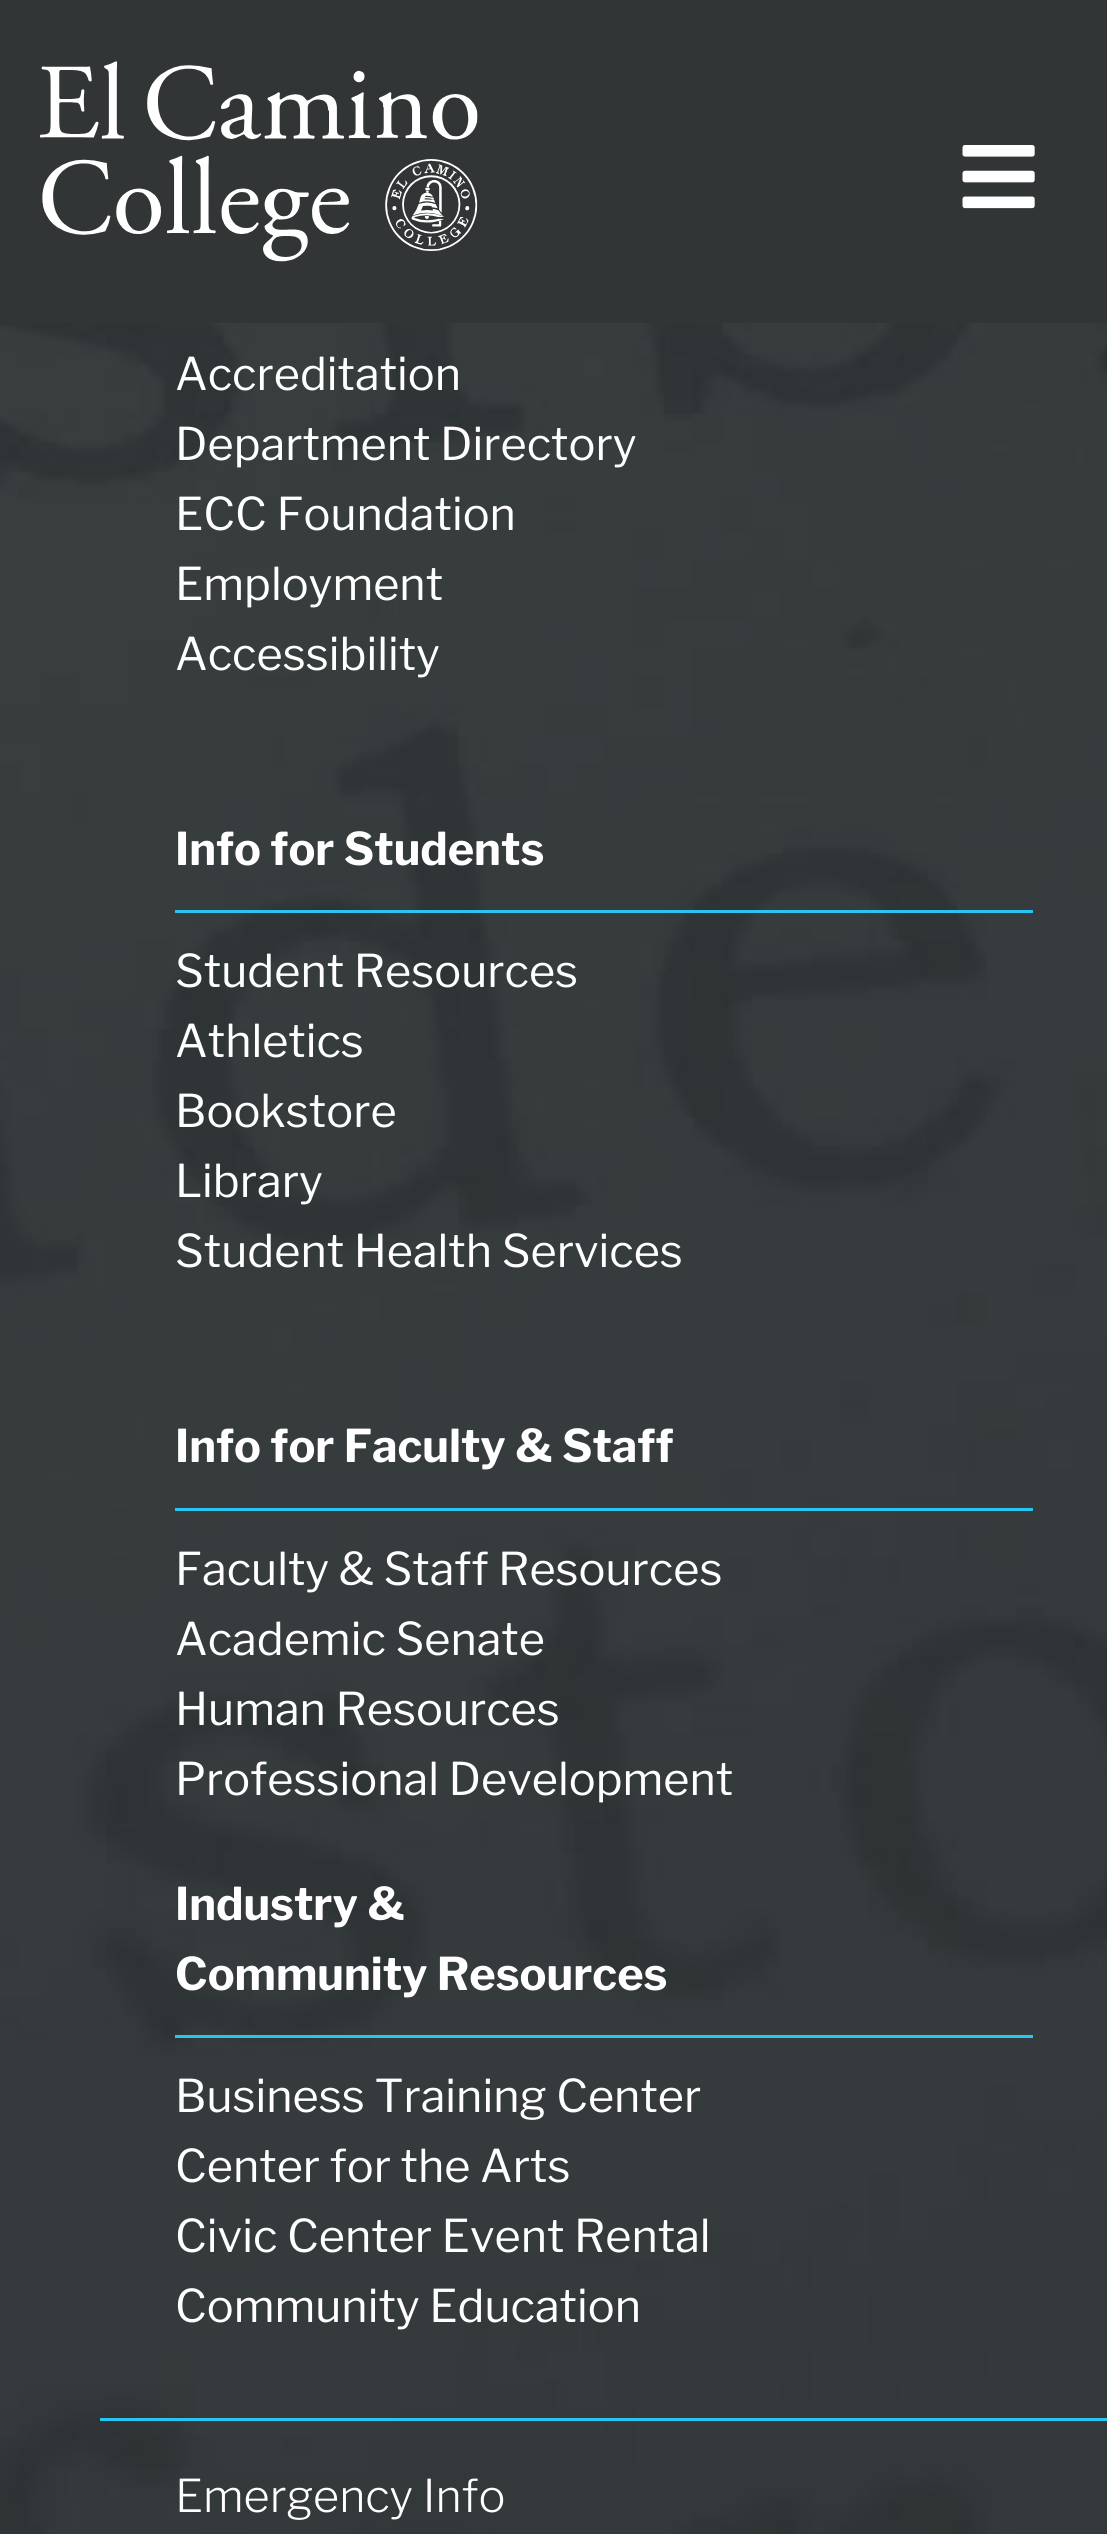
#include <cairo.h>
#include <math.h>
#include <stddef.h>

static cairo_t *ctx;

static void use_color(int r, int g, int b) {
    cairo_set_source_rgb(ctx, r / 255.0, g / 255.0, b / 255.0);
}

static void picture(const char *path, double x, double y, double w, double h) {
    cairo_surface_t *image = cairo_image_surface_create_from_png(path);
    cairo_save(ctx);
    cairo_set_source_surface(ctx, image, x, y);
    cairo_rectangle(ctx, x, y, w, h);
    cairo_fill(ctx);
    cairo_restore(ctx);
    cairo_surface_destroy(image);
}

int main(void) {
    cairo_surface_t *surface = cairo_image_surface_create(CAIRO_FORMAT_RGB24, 1107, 2534);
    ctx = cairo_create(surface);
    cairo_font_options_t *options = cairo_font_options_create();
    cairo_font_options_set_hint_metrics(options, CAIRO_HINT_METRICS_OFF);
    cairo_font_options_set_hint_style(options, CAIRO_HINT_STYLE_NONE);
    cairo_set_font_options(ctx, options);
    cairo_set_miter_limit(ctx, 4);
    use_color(255, 255, 255);
    cairo_paint(ctx);
    use_color(49, 53, 53);
    cairo_rectangle(ctx, 0, 0, 1107, 323);
    cairo_fill(ctx);
    picture("img1.png", 40, 61, 438, 201);
    picture("img2.png", 962, 145, 73, 64);
    picture("img3.png", 0, 323, 1107, 2211);
    cairo_select_font_face(ctx, "Libre Franklin", CAIRO_FONT_SLANT_NORMAL, CAIRO_FONT_WEIGHT_NORMAL);
    cairo_set_font_size(ctx, 45);
    use_color(255, 255, 255);
    cairo_move_to(ctx, 175, 390);
    cairo_show_text(ctx, "Accreditation");
    cairo_move_to(ctx, 175, 460);
    cairo_show_text(ctx, "Department Directory");
    cairo_move_to(ctx, 175, 530);
    cairo_show_text(ctx, "ECC Foundation");
    cairo_move_to(ctx, 175, 600);
    cairo_show_text(ctx, "Employment");
    cairo_move_to(ctx, 175, 670);
    cairo_show_text(ctx, "Accessibility");
    use_color(39, 197, 242);
    cairo_rectangle(ctx, 175, 910, 858, 3);
    cairo_fill(ctx);
    cairo_select_font_face(ctx, "Libre Franklin", CAIRO_FONT_SLANT_NORMAL, CAIRO_FONT_WEIGHT_BOLD);
    use_color(255, 255, 255);
    cairo_move_to(ctx, 175, 865);
    cairo_show_text(ctx, "Info for Students");
    cairo_select_font_face(ctx, "Libre Franklin", CAIRO_FONT_SLANT_NORMAL, CAIRO_FONT_WEIGHT_NORMAL);
    cairo_move_to(ctx, 175, 987);
    cairo_show_text(ctx, "Student Resources");
    cairo_move_to(ctx, 175, 1057);
    cairo_show_text(ctx, "Athletics");
    cairo_move_to(ctx, 175, 1127);
    cairo_show_text(ctx, "Bookstore");
    cairo_move_to(ctx, 175, 1197);
    cairo_show_text(ctx, "Library");
    cairo_move_to(ctx, 175, 1267);
    cairo_show_text(ctx, "Student Health Services");
    use_color(39, 197, 242);
    cairo_rectangle(ctx, 175, 1508, 858, 3);
    cairo_fill(ctx);
    cairo_select_font_face(ctx, "Libre Franklin", CAIRO_FONT_SLANT_NORMAL, CAIRO_FONT_WEIGHT_BOLD);
    use_color(255, 255, 255);
    cairo_move_to(ctx, 175, 1462);
    cairo_show_text(ctx, "Info for Faculty & Staff");
    cairo_select_font_face(ctx, "Libre Franklin", CAIRO_FONT_SLANT_NORMAL, CAIRO_FONT_WEIGHT_NORMAL);
    cairo_move_to(ctx, 175, 1585);
    cairo_show_text(ctx, "Faculty & Staff Resources");
    cairo_move_to(ctx, 175, 1655);
    cairo_show_text(ctx, "Academic Senate");
    cairo_move_to(ctx, 175, 1725);
    cairo_show_text(ctx, "Human Resources");
    cairo_move_to(ctx, 175, 1795);
    cairo_show_text(ctx, "Professional Development");
    use_color(39, 197, 242);
    cairo_rectangle(ctx, 175, 2035, 858, 3);
    cairo_fill(ctx);
    cairo_select_font_face(ctx, "Libre Franklin", CAIRO_FONT_SLANT_NORMAL, CAIRO_FONT_WEIGHT_BOLD);
    use_color(255, 255, 255);
    cairo_move_to(ctx, 175, 1920);
    cairo_show_text(ctx, "Industry &");
    cairo_move_to(ctx, 175, 1990);
    cairo_show_text(ctx, "Community Resources");
    cairo_select_font_face(ctx, "Libre Franklin", CAIRO_FONT_SLANT_NORMAL, CAIRO_FONT_WEIGHT_NORMAL);
    cairo_move_to(ctx, 175, 2112);
    cairo_show_text(ctx, "Business Training Center");
    cairo_move_to(ctx, 175, 2182);
    cairo_show_text(ctx, "Center for the Arts");
    cairo_move_to(ctx, 175, 2252);
    cairo_show_text(ctx, "Civic Center Event Rental");
    cairo_move_to(ctx, 175, 2322);
    cairo_show_text(ctx, "Community Education");
    use_color(39, 197, 242);
    cairo_rectangle(ctx, 100, 2418, 1007, 3);
    cairo_fill(ctx);
    cairo_select_font_face(ctx, "Libre Franklin Light", CAIRO_FONT_SLANT_NORMAL, CAIRO_FONT_WEIGHT_NORMAL);
    use_color(255, 255, 255);
    cairo_move_to(ctx, 175, 2512);
    cairo_show_text(ctx, "Emergency Info");
    cairo_surface_write_to_png(surface, "result.png");
    cairo_font_options_destroy(options);
    cairo_destroy(ctx);
    cairo_surface_destroy(surface);
    return 0;
}
